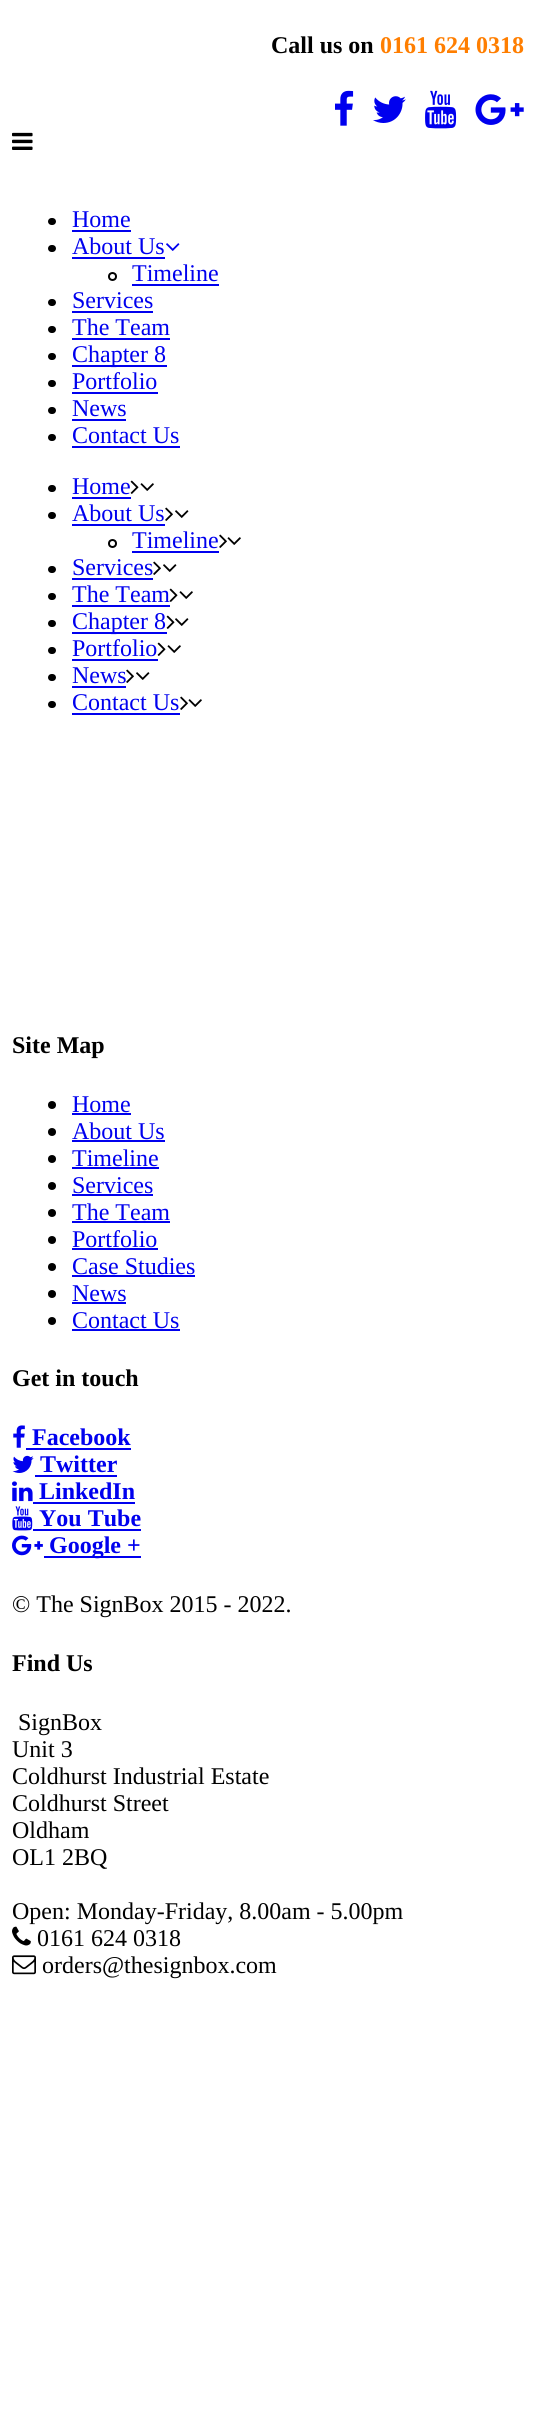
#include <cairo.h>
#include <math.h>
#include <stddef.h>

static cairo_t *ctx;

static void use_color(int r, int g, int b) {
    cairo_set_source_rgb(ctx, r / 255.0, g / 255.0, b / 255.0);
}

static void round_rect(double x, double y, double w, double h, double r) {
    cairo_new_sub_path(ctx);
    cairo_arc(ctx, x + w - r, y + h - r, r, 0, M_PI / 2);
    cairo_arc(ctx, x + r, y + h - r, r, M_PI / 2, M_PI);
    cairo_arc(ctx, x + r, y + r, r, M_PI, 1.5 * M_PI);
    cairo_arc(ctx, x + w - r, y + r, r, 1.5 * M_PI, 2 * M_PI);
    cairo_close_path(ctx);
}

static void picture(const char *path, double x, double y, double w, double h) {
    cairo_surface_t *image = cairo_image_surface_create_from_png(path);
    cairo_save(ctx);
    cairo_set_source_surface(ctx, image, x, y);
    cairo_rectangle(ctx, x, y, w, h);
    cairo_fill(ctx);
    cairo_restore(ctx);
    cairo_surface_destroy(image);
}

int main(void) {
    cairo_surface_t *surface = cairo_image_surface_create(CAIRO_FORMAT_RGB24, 535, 2435);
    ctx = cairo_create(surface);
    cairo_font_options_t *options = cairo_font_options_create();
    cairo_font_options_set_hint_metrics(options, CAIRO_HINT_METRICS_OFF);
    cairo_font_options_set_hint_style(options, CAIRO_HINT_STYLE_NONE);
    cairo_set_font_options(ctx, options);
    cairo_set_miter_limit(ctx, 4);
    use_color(255, 255, 255);
    cairo_paint(ctx);
    cairo_select_font_face(ctx, "Liberation Serif", CAIRO_FONT_SLANT_NORMAL, CAIRO_FONT_WEIGHT_BOLD);
    cairo_set_font_size(ctx, 24);
    use_color(0, 0, 0);
    cairo_move_to(ctx, 271, 53);
    cairo_show_text(ctx, "Call us on");
    use_color(255, 126, 0);
    cairo_move_to(ctx, 380, 53);
    cairo_show_text(ctx, "0161 624 0318");
    picture("img1.png", 335, 90, 19, 36);
    picture("img2.png", 373, 96, 33, 27);
    picture("img3.png", 425, 90, 32, 39);
    picture("img4.png", 475, 94, 49, 31);
    picture("img5.png", 12, 132, 21, 18);
    use_color(0, 0, 0);
    round_rect(48, 218, 8, 7, 3.5);
    cairo_fill(ctx);
    cairo_select_font_face(ctx, "Liberation Serif", CAIRO_FONT_SLANT_NORMAL, CAIRO_FONT_WEIGHT_NORMAL);
    use_color(0, 0, 238);
    cairo_move_to(ctx, 72, 227);
    cairo_show_text(ctx, "Home");
    cairo_rectangle(ctx, 72, 230, 59, 2);
    cairo_fill(ctx);
    use_color(0, 0, 0);
    round_rect(48, 245, 8, 7, 3.5);
    cairo_fill(ctx);
    use_color(0, 0, 238);
    cairo_move_to(ctx, 72, 254);
    cairo_show_text(ctx, "About Us");
    cairo_rectangle(ctx, 72, 257, 93, 2);
    cairo_fill(ctx);
    picture("img6.png", 166, 243, 14, 8);
    cairo_arc(ctx, 112.5, 276.5, 3.5, 0, 2 * M_PI);
    use_color(0, 0, 0);
    cairo_stroke(ctx);
    use_color(0, 0, 238);
    cairo_move_to(ctx, 132, 281);
    cairo_show_text(ctx, "Timeline");
    cairo_rectangle(ctx, 132, 284, 87, 2);
    cairo_fill(ctx);
    use_color(0, 0, 0);
    round_rect(48, 299, 8, 7, 3.5);
    cairo_fill(ctx);
    use_color(0, 0, 238);
    cairo_move_to(ctx, 72, 308);
    cairo_show_text(ctx, "Services");
    cairo_rectangle(ctx, 72, 311, 81, 2);
    cairo_fill(ctx);
    use_color(0, 0, 0);
    round_rect(48, 326, 8, 7, 3.5);
    cairo_fill(ctx);
    use_color(0, 0, 238);
    cairo_move_to(ctx, 72, 335);
    cairo_show_text(ctx, "The Team");
    cairo_rectangle(ctx, 72, 338, 98, 2);
    cairo_fill(ctx);
    use_color(0, 0, 0);
    round_rect(48, 353, 8, 7, 3.5);
    cairo_fill(ctx);
    use_color(0, 0, 238);
    cairo_rectangle(ctx, 72, 365, 95, 2);
    cairo_fill(ctx);
    cairo_move_to(ctx, 72, 362);
    cairo_show_text(ctx, "Chapter 8");
    use_color(0, 0, 0);
    round_rect(48, 380, 8, 7, 3.5);
    cairo_fill(ctx);
    use_color(0, 0, 238);
    cairo_move_to(ctx, 72, 389);
    cairo_show_text(ctx, "Portfolio");
    cairo_rectangle(ctx, 72, 392, 86, 2);
    cairo_fill(ctx);
    use_color(0, 0, 0);
    round_rect(48, 407, 8, 7, 3.5);
    cairo_fill(ctx);
    use_color(0, 0, 238);
    cairo_move_to(ctx, 72, 416);
    cairo_show_text(ctx, "News");
    cairo_rectangle(ctx, 72, 419, 54, 2);
    cairo_fill(ctx);
    use_color(0, 0, 0);
    round_rect(48, 434, 8, 7, 3.5);
    cairo_fill(ctx);
    use_color(0, 0, 238);
    cairo_move_to(ctx, 72, 443);
    cairo_show_text(ctx, "Contact Us");
    cairo_rectangle(ctx, 72, 446, 108, 2);
    cairo_fill(ctx);
    use_color(0, 0, 0);
    round_rect(48, 485, 8, 7, 3.5);
    cairo_fill(ctx);
    use_color(0, 0, 238);
    cairo_move_to(ctx, 72, 494);
    cairo_show_text(ctx, "Home");
    cairo_rectangle(ctx, 72, 497, 59, 2);
    cairo_fill(ctx);
    picture("img7.png", 130, 480, 9, 14);
    picture("img8.png", 140, 483, 14, 8);
    use_color(0, 0, 0);
    round_rect(48, 512, 8, 7, 3.5);
    cairo_fill(ctx);
    use_color(0, 0, 238);
    cairo_move_to(ctx, 72, 521);
    cairo_show_text(ctx, "About Us");
    cairo_rectangle(ctx, 72, 524, 93, 2);
    cairo_fill(ctx);
    picture("img9.png", 165, 507, 8, 14);
    picture("img10.png", 175, 510, 14, 8);
    cairo_arc(ctx, 112.5, 543.5, 3.5, 0, 2 * M_PI);
    use_color(0, 0, 0);
    cairo_stroke(ctx);
    use_color(0, 0, 238);
    cairo_move_to(ctx, 132, 548);
    cairo_show_text(ctx, "Timeline");
    cairo_rectangle(ctx, 132, 551, 87, 2);
    cairo_fill(ctx);
    picture("img9.png", 219, 534, 8, 14);
    picture("img8.png", 227, 537, 14, 8);
    use_color(0, 0, 0);
    round_rect(48, 566, 8, 7, 3.5);
    cairo_fill(ctx);
    use_color(0, 0, 238);
    cairo_move_to(ctx, 72, 575);
    cairo_show_text(ctx, "Services");
    cairo_rectangle(ctx, 72, 578, 81, 2);
    cairo_fill(ctx);
    picture("img9.png", 153, 561, 8, 14);
    picture("img10.png", 163, 564, 14, 8);
    use_color(0, 0, 0);
    round_rect(48, 593, 8, 7, 3.5);
    cairo_fill(ctx);
    use_color(0, 0, 238);
    cairo_move_to(ctx, 72, 602);
    cairo_show_text(ctx, "The Team");
    cairo_rectangle(ctx, 72, 605, 98, 2);
    cairo_fill(ctx);
    picture("img11.png", 169, 588, 9, 14);
    picture("img8.png", 179, 591, 14, 8);
    use_color(0, 0, 0);
    round_rect(48, 620, 8, 7, 3.5);
    cairo_fill(ctx);
    use_color(0, 0, 238);
    cairo_rectangle(ctx, 72, 632, 95, 2);
    cairo_fill(ctx);
    cairo_move_to(ctx, 72, 629);
    cairo_show_text(ctx, "Chapter 8");
    picture("img7.png", 166, 615, 9, 14);
    picture("img10.png", 175, 618, 14, 8);
    use_color(0, 0, 0);
    round_rect(48, 647, 8, 7, 3.5);
    cairo_fill(ctx);
    use_color(0, 0, 238);
    cairo_move_to(ctx, 72, 656);
    cairo_show_text(ctx, "Portfolio");
    cairo_rectangle(ctx, 72, 659, 86, 2);
    cairo_fill(ctx);
    picture("img7.png", 157, 642, 9, 14);
    picture("img8.png", 167, 645, 14, 8);
    use_color(0, 0, 0);
    round_rect(48, 674, 8, 7, 3.5);
    cairo_fill(ctx);
    use_color(0, 0, 238);
    cairo_move_to(ctx, 72, 683);
    cairo_show_text(ctx, "News");
    cairo_rectangle(ctx, 72, 686, 54, 2);
    cairo_fill(ctx);
    picture("img9.png", 126, 669, 8, 14);
    picture("img10.png", 136, 672, 14, 8);
    use_color(0, 0, 0);
    round_rect(48, 701, 8, 7, 3.5);
    cairo_fill(ctx);
    use_color(0, 0, 238);
    cairo_move_to(ctx, 72, 710);
    cairo_show_text(ctx, "Contact Us");
    cairo_rectangle(ctx, 72, 713, 108, 2);
    cairo_fill(ctx);
    picture("img9.png", 180, 696, 8, 14);
    picture("img8.png", 188, 699, 14, 8);
    cairo_select_font_face(ctx, "Liberation Serif", CAIRO_FONT_SLANT_NORMAL, CAIRO_FONT_WEIGHT_BOLD);
    use_color(0, 0, 0);
    cairo_move_to(ctx, 12, 1053);
    cairo_show_text(ctx, "Site Map");
    cairo_new_path(ctx);
    cairo_arc(ctx, 52, 1105, 4, 0, 2 * M_PI);
    cairo_fill(ctx);
    cairo_select_font_face(ctx, "Liberation Serif", CAIRO_FONT_SLANT_NORMAL, CAIRO_FONT_WEIGHT_NORMAL);
    use_color(0, 0, 238);
    cairo_move_to(ctx, 72, 1112);
    cairo_show_text(ctx, "Home");
    cairo_rectangle(ctx, 72, 1113, 59, 2);
    cairo_fill(ctx);
    use_color(0, 0, 0);
    cairo_arc(ctx, 52, 1132, 4, 0, 2 * M_PI);
    cairo_fill(ctx);
    use_color(0, 0, 238);
    cairo_move_to(ctx, 72, 1139);
    cairo_show_text(ctx, "About Us");
    cairo_rectangle(ctx, 72, 1140, 93, 2);
    cairo_fill(ctx);
    use_color(0, 0, 0);
    cairo_arc(ctx, 52, 1159, 4, 0, 2 * M_PI);
    cairo_fill(ctx);
    use_color(0, 0, 238);
    cairo_move_to(ctx, 72, 1166);
    cairo_show_text(ctx, "Timeline");
    cairo_rectangle(ctx, 72, 1167, 87, 2);
    cairo_fill(ctx);
    use_color(0, 0, 0);
    cairo_arc(ctx, 52, 1186, 4, 0, 2 * M_PI);
    cairo_fill(ctx);
    use_color(0, 0, 238);
    cairo_move_to(ctx, 72, 1193);
    cairo_show_text(ctx, "Services");
    cairo_rectangle(ctx, 72, 1194, 81, 2);
    cairo_fill(ctx);
    use_color(0, 0, 0);
    cairo_arc(ctx, 52, 1213, 4, 0, 2 * M_PI);
    cairo_fill(ctx);
    use_color(0, 0, 238);
    cairo_move_to(ctx, 72, 1220);
    cairo_show_text(ctx, "The Team");
    cairo_rectangle(ctx, 72, 1221, 98, 2);
    cairo_fill(ctx);
    use_color(0, 0, 0);
    cairo_arc(ctx, 52, 1240, 4, 0, 2 * M_PI);
    cairo_fill(ctx);
    use_color(0, 0, 238);
    cairo_move_to(ctx, 72, 1247);
    cairo_show_text(ctx, "Portfolio");
    cairo_rectangle(ctx, 72, 1248, 86, 2);
    cairo_fill(ctx);
    use_color(0, 0, 0);
    cairo_arc(ctx, 52, 1267, 4, 0, 2 * M_PI);
    cairo_fill(ctx);
    use_color(0, 0, 238);
    cairo_move_to(ctx, 72, 1274);
    cairo_show_text(ctx, "Case Studies");
    cairo_rectangle(ctx, 72, 1275, 123, 2);
    cairo_fill(ctx);
    use_color(0, 0, 0);
    cairo_arc(ctx, 52, 1294, 4, 0, 2 * M_PI);
    cairo_fill(ctx);
    use_color(0, 0, 238);
    cairo_move_to(ctx, 72, 1301);
    cairo_show_text(ctx, "News");
    cairo_rectangle(ctx, 72, 1302, 54, 2);
    cairo_fill(ctx);
    use_color(0, 0, 0);
    cairo_arc(ctx, 52, 1321, 4, 0, 2 * M_PI);
    cairo_fill(ctx);
    use_color(0, 0, 238);
    cairo_move_to(ctx, 72, 1328);
    cairo_show_text(ctx, "Contact Us");
    cairo_rectangle(ctx, 72, 1329, 108, 2);
    cairo_fill(ctx);
    cairo_select_font_face(ctx, "Liberation Serif", CAIRO_FONT_SLANT_NORMAL, CAIRO_FONT_WEIGHT_BOLD);
    use_color(0, 0, 0);
    cairo_move_to(ctx, 12, 1386);
    cairo_show_text(ctx, "Get in touch");
    picture("img12.png", 13, 1425, 12, 23);
    use_color(0, 0, 238);
    cairo_move_to(ctx, 32, 1445);
    cairo_show_text(ctx, "Facebook");
    cairo_rectangle(ctx, 26, 1448, 105, 2);
    cairo_fill(ctx);
    picture("img13.png", 12, 1455, 22, 18);
    cairo_move_to(ctx, 40, 1472);
    cairo_show_text(ctx, "Twitter");
    cairo_rectangle(ctx, 35, 1475, 82, 2);
    cairo_fill(ctx);
    picture("img14.png", 12, 1481, 21, 21);
    cairo_move_to(ctx, 39, 1499);
    cairo_show_text(ctx, "LinkedIn");
    cairo_rectangle(ctx, 33, 1502, 102, 2);
    cairo_fill(ctx);
    picture("img15.png", 12, 1506, 21, 25);
    cairo_move_to(ctx, 39, 1526);
    cairo_show_text(ctx, "You Tube");
    cairo_rectangle(ctx, 33, 1529, 108, 2);
    cairo_fill(ctx);
    picture("img16.png", 12, 1535, 31, 21);
    cairo_rectangle(ctx, 44, 1556, 97, 2);
    cairo_fill(ctx);
    cairo_move_to(ctx, 49, 1553);
    cairo_show_text(ctx, "Google +");
    cairo_select_font_face(ctx, "Liberation Serif", CAIRO_FONT_SLANT_NORMAL, CAIRO_FONT_WEIGHT_NORMAL);
    use_color(0, 0, 0);
    cairo_move_to(ctx, 12, 1612);
    cairo_show_text(ctx, "© The SignBox 2015 - 2022.");
    cairo_select_font_face(ctx, "Liberation Serif", CAIRO_FONT_SLANT_NORMAL, CAIRO_FONT_WEIGHT_BOLD);
    cairo_move_to(ctx, 12, 1671);
    cairo_show_text(ctx, "Find Us");
    cairo_select_font_face(ctx, "Liberation Serif", CAIRO_FONT_SLANT_NORMAL, CAIRO_FONT_WEIGHT_NORMAL);
    cairo_move_to(ctx, 18, 1730);
    cairo_show_text(ctx, "SignBox");
    cairo_move_to(ctx, 12, 1757);
    cairo_show_text(ctx, "Unit 3");
    cairo_move_to(ctx, 12, 1784);
    cairo_show_text(ctx, "Coldhurst Industrial Estate");
    cairo_move_to(ctx, 12, 1811);
    cairo_show_text(ctx, "Coldhurst Street");
    cairo_move_to(ctx, 12, 1838);
    cairo_show_text(ctx, "Oldham");
    cairo_move_to(ctx, 12, 1865);
    cairo_show_text(ctx, "OL1 2BQ");
    cairo_move_to(ctx, 12, 1919);
    cairo_show_text(ctx, "Open: Monday-Friday, 8.00am - 5.00pm");
    picture("img17.png", 12, 1926, 19, 20);
    cairo_move_to(ctx, 37, 1946);
    cairo_show_text(ctx, "0161 624 0318");
    picture("img18.png", 12, 1955, 24, 20);
    cairo_move_to(ctx, 42, 1973);
    cairo_show_text(ctx, "orders@thesignbox.com");
    cairo_surface_write_to_png(surface, "result.png");
    cairo_font_options_destroy(options);
    cairo_destroy(ctx);
    cairo_surface_destroy(surface);
    return 0;
}
